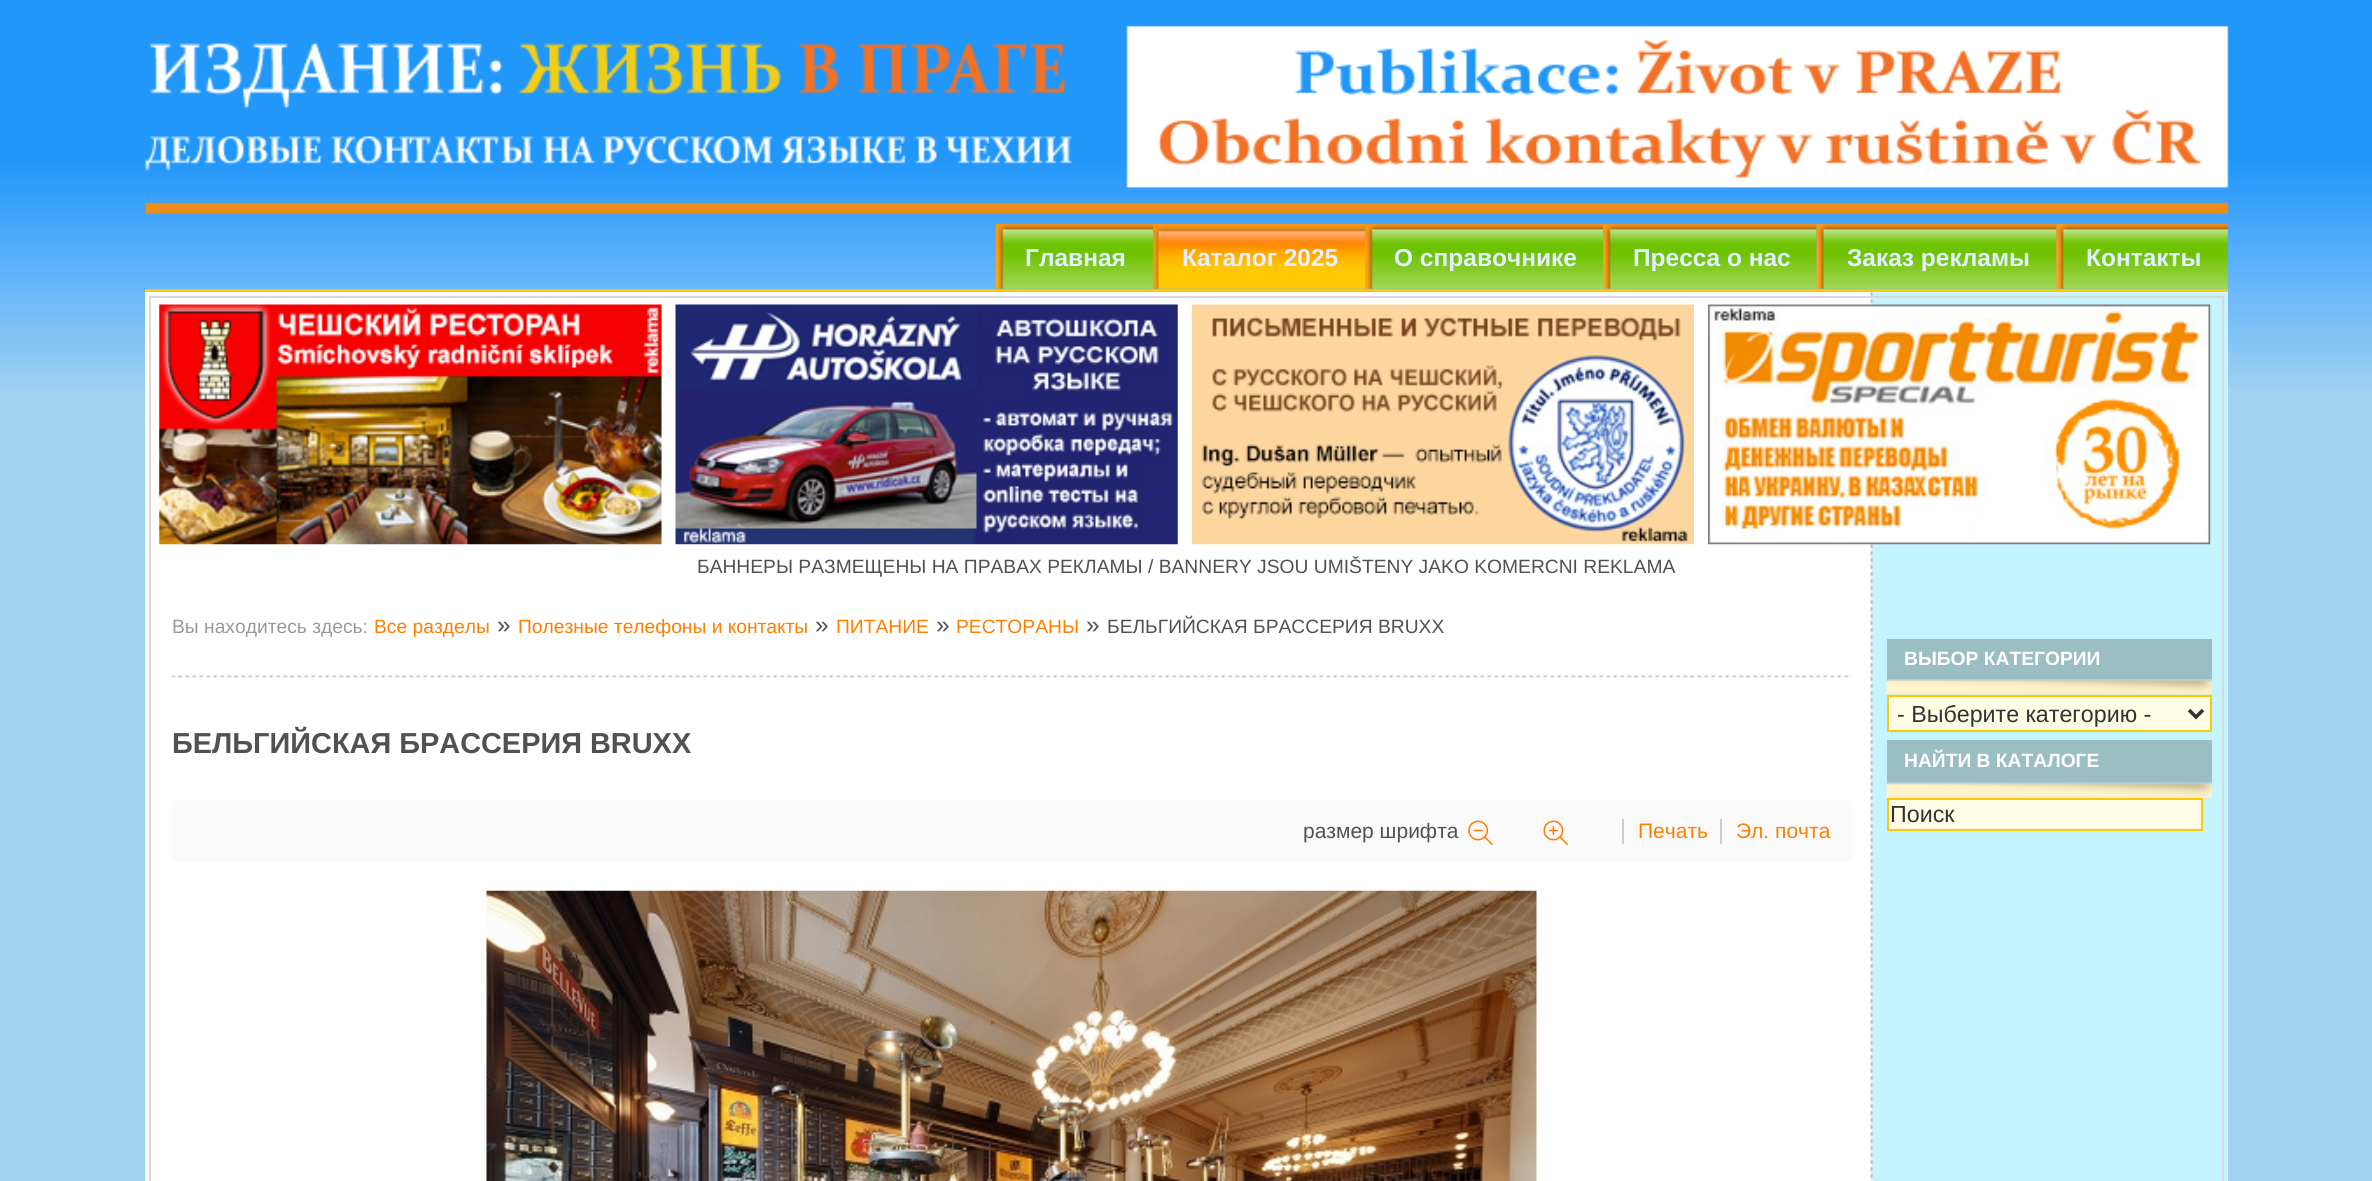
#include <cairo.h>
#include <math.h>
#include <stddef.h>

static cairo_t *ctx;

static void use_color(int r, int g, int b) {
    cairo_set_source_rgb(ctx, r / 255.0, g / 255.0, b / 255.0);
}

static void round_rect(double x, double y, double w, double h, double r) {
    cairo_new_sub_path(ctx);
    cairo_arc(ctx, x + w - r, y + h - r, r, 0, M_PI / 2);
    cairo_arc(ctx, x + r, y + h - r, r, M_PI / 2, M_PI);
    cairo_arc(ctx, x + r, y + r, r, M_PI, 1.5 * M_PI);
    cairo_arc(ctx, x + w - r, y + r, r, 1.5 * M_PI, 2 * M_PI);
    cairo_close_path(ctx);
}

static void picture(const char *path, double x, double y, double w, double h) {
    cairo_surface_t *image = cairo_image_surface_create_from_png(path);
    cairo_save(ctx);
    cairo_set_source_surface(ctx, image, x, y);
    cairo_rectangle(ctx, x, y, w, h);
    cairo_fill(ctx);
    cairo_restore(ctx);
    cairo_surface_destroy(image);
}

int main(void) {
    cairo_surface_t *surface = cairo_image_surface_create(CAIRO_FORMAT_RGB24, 2372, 1181);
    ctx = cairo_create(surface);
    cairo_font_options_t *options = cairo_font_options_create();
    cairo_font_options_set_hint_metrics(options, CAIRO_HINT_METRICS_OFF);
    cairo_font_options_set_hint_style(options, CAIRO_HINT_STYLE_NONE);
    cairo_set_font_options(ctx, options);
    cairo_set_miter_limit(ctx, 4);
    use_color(161, 211, 240);
    cairo_paint(ctx);
    picture("img1.png", 0, 0, 2372, 389);
    picture("img2.png", 144, 25, 2085, 189);
    use_color(255, 200, 7);
    cairo_rectangle(ctx, 145, 289, 2083, 3);
    cairo_fill(ctx);
    picture("img3.png", 995, 224, 159, 65);
    cairo_select_font_face(ctx, "Liberation Sans", CAIRO_FONT_SLANT_NORMAL, CAIRO_FONT_WEIGHT_BOLD);
    cairo_set_font_size(ctx, 24.5);
    use_color(227, 240, 255);
    cairo_move_to(ctx, 1025, 266);
    cairo_show_text(ctx, "Главная");
    picture("img4.png", 1153, 224, 212, 65);
    cairo_move_to(ctx, 1182, 266);
    cairo_show_text(ctx, "Каталог 2025");
    picture("img5.png", 1365, 224, 238, 65);
    cairo_move_to(ctx, 1394, 266);
    cairo_show_text(ctx, "О справочнике");
    picture("img6.png", 1603, 224, 214, 65);
    cairo_move_to(ctx, 1633, 266);
    cairo_show_text(ctx, "Пресса о нас");
    picture("img7.png", 1816, 224, 241, 65);
    cairo_move_to(ctx, 1847, 266);
    cairo_show_text(ctx, "Заказ рекламы");
    picture("img8.png", 2056, 224, 172, 65);
    cairo_move_to(ctx, 2086, 266);
    cairo_show_text(ctx, "Контакты");
    use_color(255, 255, 255);
    cairo_rectangle(ctx, 145, 292, 2083, 889);
    cairo_fill(ctx);
    picture("img9.png", 1870, 292, 358, 889);
    cairo_rectangle(ctx, 150, 297, 2073, 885);
    use_color(217, 217, 217);
    cairo_stroke(ctx);
    picture("img10.png", 159, 304, 503, 241);
    picture("img11.png", 675, 304, 503, 241);
    picture("img12.png", 1191, 304, 503, 241);
    picture("img13.png", 1708, 304, 503, 241);
    cairo_select_font_face(ctx, "Liberation Sans", CAIRO_FONT_SLANT_NORMAL, CAIRO_FONT_WEIGHT_NORMAL);
    cairo_set_font_size(ctx, 19.25);
    use_color(81, 81, 81);
    cairo_move_to(ctx, 697, 573);
    cairo_show_text(ctx, "БАННЕРЫ РАЗМЕЩЕНЫ НА ПРАВАХ РЕКЛАМЫ / BANNERY JSOU UMIŠTENY JAKO KOMERCNI REKLAMA");
    picture("img14.png", 171, 675, 1681, 3);
    use_color(153, 153, 153);
    cairo_move_to(ctx, 172, 633);
    cairo_show_text(ctx, "Вы находитесь здесь:");
    use_color(255, 126, 0);
    cairo_move_to(ctx, 374, 633);
    cairo_show_text(ctx, "Все разделы");
    cairo_set_font_size(ctx, 24.5);
    use_color(81, 81, 81);
    cairo_move_to(ctx, 497, 633);
    cairo_show_text(ctx, "»");
    cairo_set_font_size(ctx, 19.25);
    use_color(255, 126, 0);
    cairo_move_to(ctx, 518, 633);
    cairo_show_text(ctx, "Полезные телефоны и контакты");
    cairo_set_font_size(ctx, 24.5);
    use_color(81, 81, 81);
    cairo_move_to(ctx, 815, 633);
    cairo_show_text(ctx, "»");
    cairo_set_font_size(ctx, 19.25);
    use_color(255, 126, 0);
    cairo_move_to(ctx, 836, 633);
    cairo_show_text(ctx, "ПИТАНИЕ");
    cairo_set_font_size(ctx, 24.5);
    use_color(81, 81, 81);
    cairo_move_to(ctx, 936, 633);
    cairo_show_text(ctx, "»");
    cairo_set_font_size(ctx, 19.25);
    use_color(255, 126, 0);
    cairo_move_to(ctx, 956, 633);
    cairo_show_text(ctx, "РЕСТОРАНЫ");
    cairo_set_font_size(ctx, 24.5);
    use_color(81, 81, 81);
    cairo_move_to(ctx, 1086, 633);
    cairo_show_text(ctx, "»");
    cairo_set_font_size(ctx, 19.25);
    cairo_move_to(ctx, 1107, 633);
    cairo_show_text(ctx, "БЕЛЬГИЙСКАЯ БРАССЕРИЯ BRUXX");
    cairo_select_font_face(ctx, "Liberation Sans", CAIRO_FONT_SLANT_NORMAL, CAIRO_FONT_WEIGHT_BOLD);
    cairo_set_font_size(ctx, 28.9);
    cairo_move_to(ctx, 172, 753);
    cairo_show_text(ctx, "БЕЛЬГИЙСКАЯ БРАССЕРИЯ BRUXX");
    use_color(250, 250, 250);
    round_rect(172, 800, 1680, 63, 7);
    cairo_fill(ctx);
    cairo_select_font_face(ctx, "Liberation Sans", CAIRO_FONT_SLANT_NORMAL, CAIRO_FONT_WEIGHT_NORMAL);
    cairo_set_font_size(ctx, 21);
    use_color(81, 81, 81);
    cairo_move_to(ctx, 1303, 838);
    cairo_show_text(ctx, "размер шрифта");
    picture("img15.png", 1468, 820, 25, 25);
    picture("img16.png", 1543, 820, 25, 25);
    use_color(255, 126, 0);
    cairo_move_to(ctx, 1638, 838);
    cairo_show_text(ctx, "Печать");
    use_color(204, 204, 204);
    cairo_rectangle(ctx, 1622, 819, 2, 25);
    cairo_fill(ctx);
    use_color(255, 126, 0);
    cairo_move_to(ctx, 1736, 838);
    cairo_show_text(ctx, "Эл. почта");
    use_color(204, 204, 204);
    cairo_rectangle(ctx, 1720, 819, 2, 25);
    cairo_fill(ctx);
    picture("img17.png", 486, 890, 1051, 291);
    use_color(155, 190, 196);
    cairo_rectangle(ctx, 1887, 639, 325, 56);
    cairo_fill(ctx);
    picture("img18.png", 1886, 679, 326, 16);
    cairo_select_font_face(ctx, "Liberation Sans", CAIRO_FONT_SLANT_NORMAL, CAIRO_FONT_WEIGHT_BOLD);
    cairo_set_font_size(ctx, 19.25);
    use_color(255, 255, 255);
    cairo_move_to(ctx, 1904, 665);
    cairo_show_text(ctx, "ВЫБОР КАТЕГОРИИ");
    use_color(255, 253, 229);
    cairo_rectangle(ctx, 1888, 696, 323, 35);
    cairo_fill_preserve(ctx);
    use_color(255, 200, 7);
    cairo_stroke(ctx);
    cairo_new_path(ctx);
    cairo_move_to(ctx, 2189, 710);
    cairo_line_to(ctx, 2196, 717);
    cairo_line_to(ctx, 2203, 710);
    use_color(51, 51, 51);
    cairo_set_line_width(ctx, 3.5);
    cairo_stroke(ctx);
    cairo_select_font_face(ctx, "Liberation Sans", CAIRO_FONT_SLANT_NORMAL, CAIRO_FONT_WEIGHT_NORMAL);
    cairo_set_font_size(ctx, 23.25);
    cairo_move_to(ctx, 1897, 722);
    cairo_show_text(ctx, "- Выберите категорию -");
    use_color(155, 190, 196);
    cairo_rectangle(ctx, 1887, 740, 325, 43);
    cairo_fill(ctx);
    picture("img19.png", 1886, 782, 326, 16);
    cairo_select_font_face(ctx, "Liberation Sans", CAIRO_FONT_SLANT_NORMAL, CAIRO_FONT_WEIGHT_BOLD);
    cairo_set_font_size(ctx, 19.25);
    use_color(255, 255, 255);
    cairo_move_to(ctx, 1904, 767);
    cairo_show_text(ctx, "НАЙТИ В КАТАЛОГЕ");
    use_color(255, 253, 229);
    cairo_rectangle(ctx, 1888, 799, 314, 31);
    cairo_fill_preserve(ctx);
    use_color(255, 200, 7);
    cairo_set_line_width(ctx, 2);
    cairo_stroke(ctx);
    cairo_select_font_face(ctx, "Liberation Sans", CAIRO_FONT_SLANT_NORMAL, CAIRO_FONT_WEIGHT_NORMAL);
    cairo_set_font_size(ctx, 23.25);
    use_color(51, 51, 51);
    cairo_move_to(ctx, 1890, 822);
    cairo_show_text(ctx, "Поиск");
    cairo_surface_write_to_png(surface, "result.png");
    cairo_font_options_destroy(options);
    cairo_destroy(ctx);
    cairo_surface_destroy(surface);
    return 0;
}
